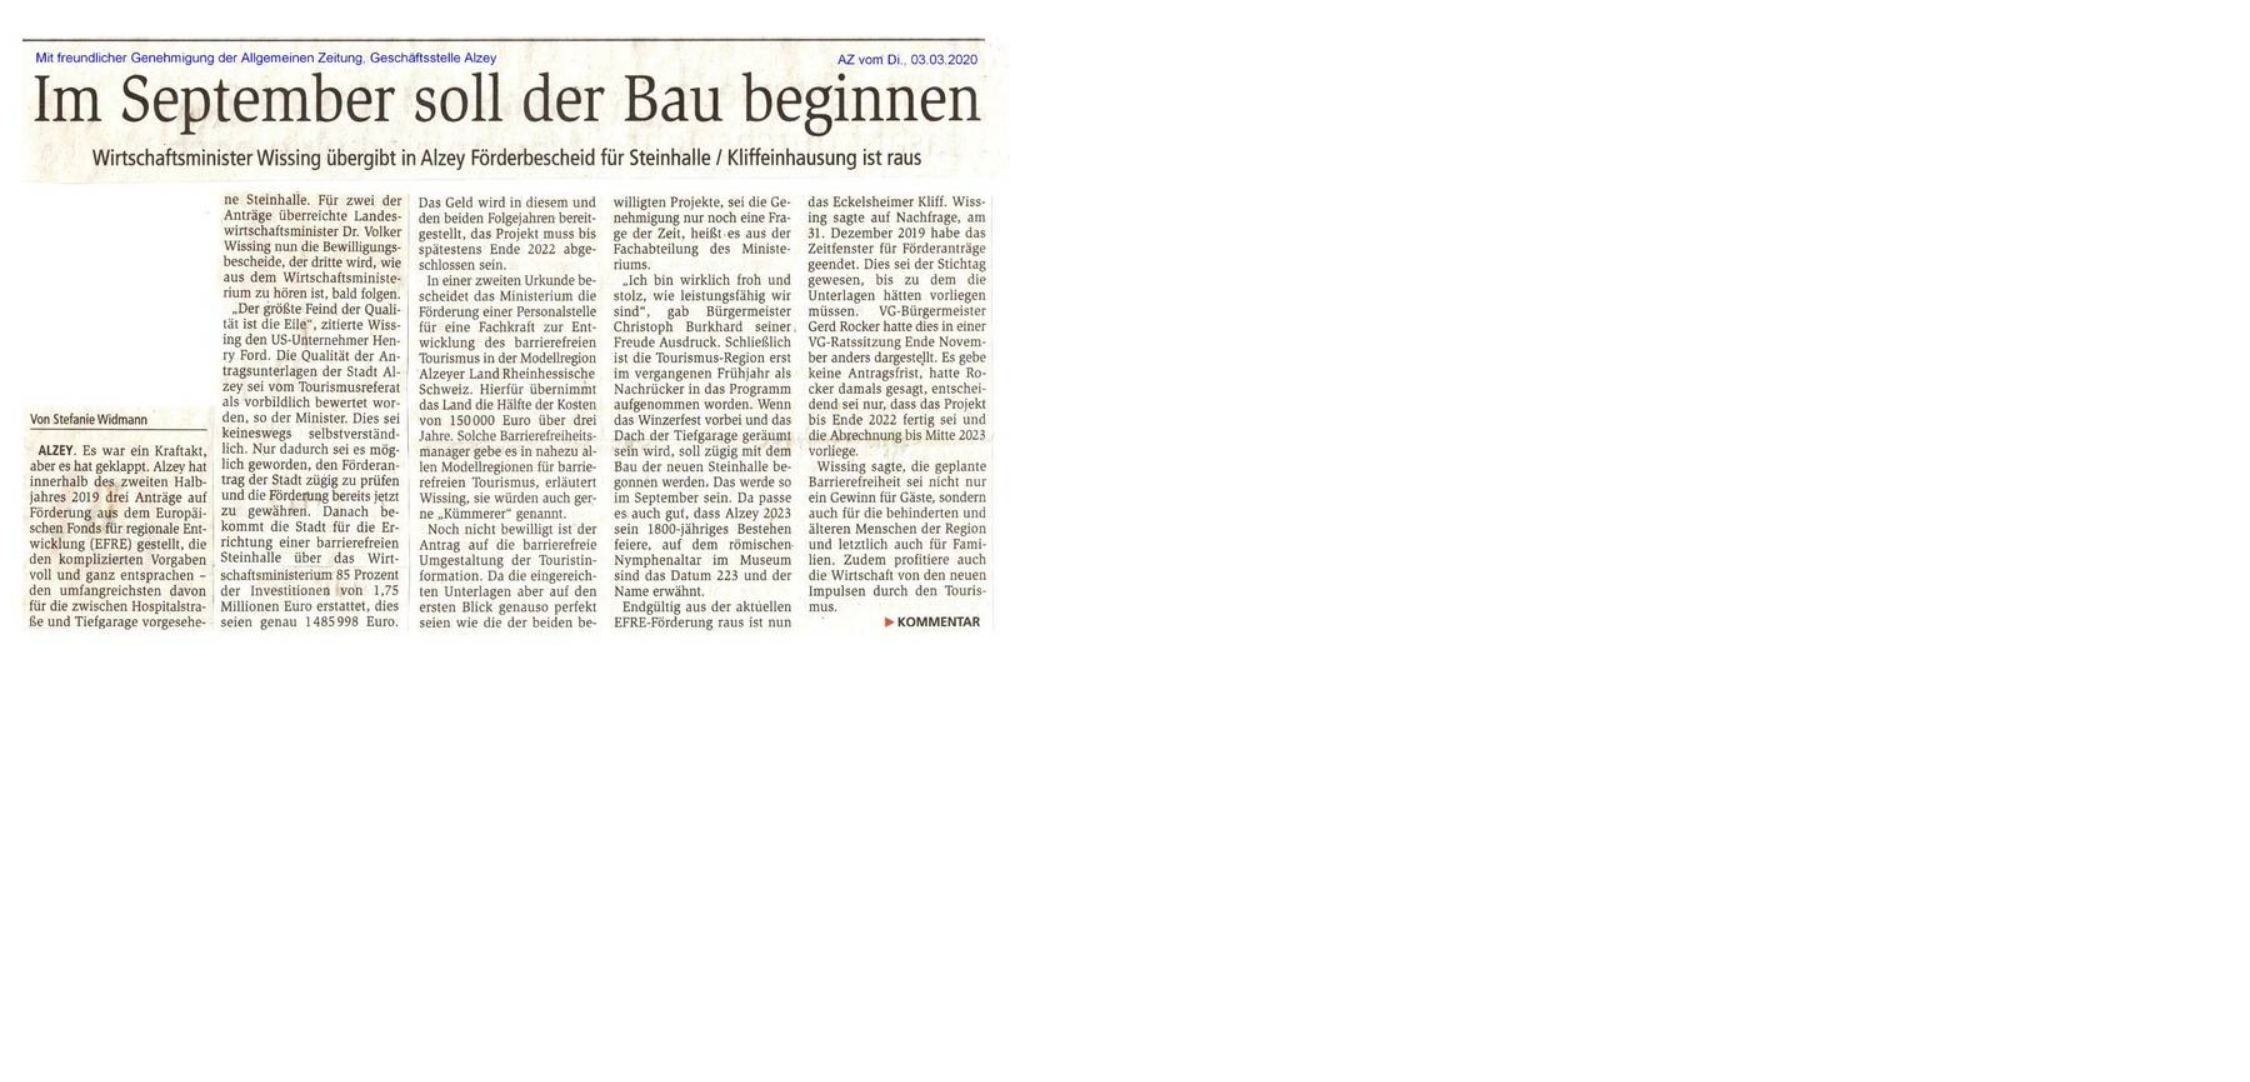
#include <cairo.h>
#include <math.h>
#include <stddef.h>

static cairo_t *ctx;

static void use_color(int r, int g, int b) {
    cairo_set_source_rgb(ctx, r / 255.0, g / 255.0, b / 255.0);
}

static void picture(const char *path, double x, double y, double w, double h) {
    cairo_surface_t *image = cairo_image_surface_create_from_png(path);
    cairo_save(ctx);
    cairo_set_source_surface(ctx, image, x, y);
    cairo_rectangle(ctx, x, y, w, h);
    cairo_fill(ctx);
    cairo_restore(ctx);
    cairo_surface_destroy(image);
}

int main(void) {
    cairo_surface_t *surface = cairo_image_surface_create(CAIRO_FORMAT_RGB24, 2250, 1082);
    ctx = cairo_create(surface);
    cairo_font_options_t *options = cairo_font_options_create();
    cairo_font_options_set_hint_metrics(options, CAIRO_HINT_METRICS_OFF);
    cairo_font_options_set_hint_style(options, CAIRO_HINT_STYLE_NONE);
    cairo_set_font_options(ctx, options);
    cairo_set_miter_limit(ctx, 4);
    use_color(255, 255, 255);
    cairo_paint(ctx);
    picture("img1.png", 10, 32, 1000, 613);
    cairo_surface_write_to_png(surface, "result.png");
    cairo_font_options_destroy(options);
    cairo_destroy(ctx);
    cairo_surface_destroy(surface);
    return 0;
}
